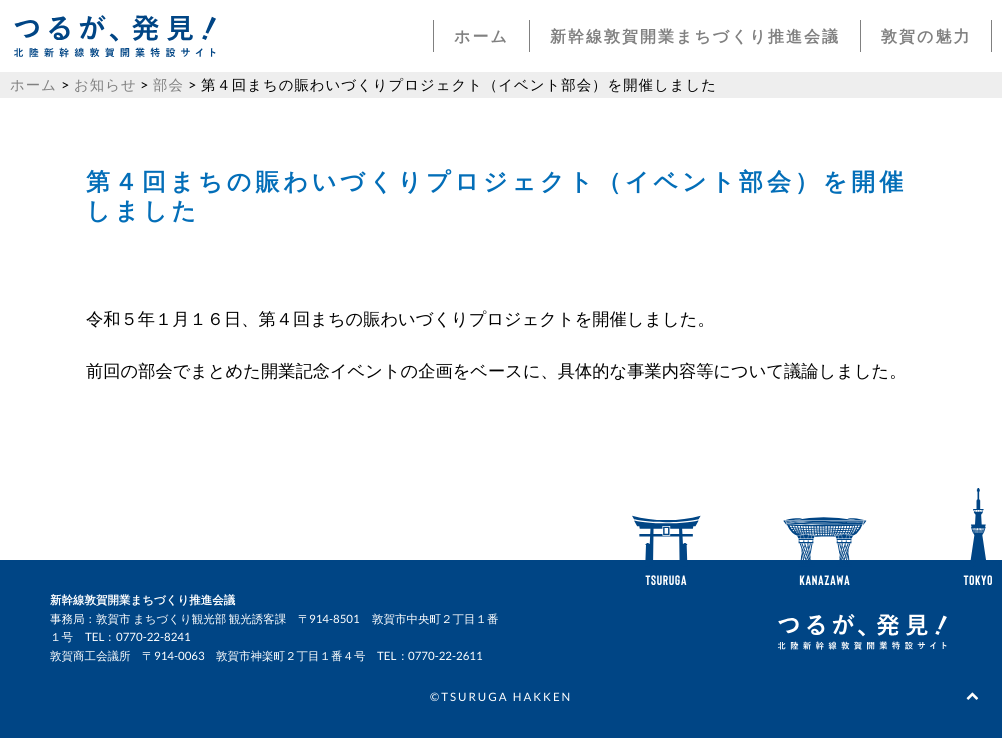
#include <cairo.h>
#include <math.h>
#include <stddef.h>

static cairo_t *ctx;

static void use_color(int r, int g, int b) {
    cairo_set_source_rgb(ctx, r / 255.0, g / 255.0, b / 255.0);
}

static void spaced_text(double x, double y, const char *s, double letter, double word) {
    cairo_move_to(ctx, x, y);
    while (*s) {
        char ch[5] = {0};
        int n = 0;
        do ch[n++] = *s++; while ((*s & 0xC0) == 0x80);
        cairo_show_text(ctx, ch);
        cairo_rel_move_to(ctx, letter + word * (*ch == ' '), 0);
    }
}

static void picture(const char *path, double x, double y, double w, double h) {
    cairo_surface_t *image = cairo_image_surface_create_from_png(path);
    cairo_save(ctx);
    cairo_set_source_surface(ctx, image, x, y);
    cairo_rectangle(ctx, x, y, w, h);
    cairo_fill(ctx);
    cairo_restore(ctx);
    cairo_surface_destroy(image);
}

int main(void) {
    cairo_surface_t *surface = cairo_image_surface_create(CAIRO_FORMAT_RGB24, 1002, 738);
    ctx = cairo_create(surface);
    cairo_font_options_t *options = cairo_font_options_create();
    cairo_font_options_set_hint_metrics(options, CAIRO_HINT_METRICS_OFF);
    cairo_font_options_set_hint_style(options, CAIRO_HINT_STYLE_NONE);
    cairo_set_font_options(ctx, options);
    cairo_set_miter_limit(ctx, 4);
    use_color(255, 255, 255);
    cairo_paint(ctx);
    picture("img1.png", 14, 15, 202, 43);
    use_color(128, 128, 128);
    cairo_rectangle(ctx, 433, 20, 1, 32);
    cairo_fill(ctx);
    cairo_select_font_face(ctx, "WenQuanYi Zen Hei", CAIRO_FONT_SLANT_NORMAL, CAIRO_FONT_WEIGHT_BOLD);
    cairo_set_font_size(ctx, 16);
    spaced_text(454, 42, "ホーム", 2, 0);
    cairo_rectangle(ctx, 529, 20, 1, 32);
    cairo_fill(ctx);
    spaced_text(550, 42, "新幹線敦賀開業まちづくり推進会議", 2, 0);
    cairo_rectangle(ctx, 991, 20, 1, 32);
    cairo_fill(ctx);
    cairo_rectangle(ctx, 860, 20, 1, 32);
    cairo_fill(ctx);
    spaced_text(881, 42, "敦賀の魅力", 2, 0);
    use_color(238, 238, 238);
    cairo_rectangle(ctx, 0, 72, 1002, 26);
    cairo_fill(ctx);
    cairo_select_font_face(ctx, "WenQuanYi Zen Hei Medium", CAIRO_FONT_SLANT_NORMAL, CAIRO_FONT_WEIGHT_NORMAL);
    cairo_set_font_size(ctx, 14.4);
    use_color(128, 128, 128);
    spaced_text(10, 90, "ホーム", 1, 0);
    cairo_select_font_face(ctx, "Lato", CAIRO_FONT_SLANT_NORMAL, CAIRO_FONT_WEIGHT_NORMAL);
    use_color(0, 0, 0);
    spaced_text(61, 90, ">", 1, 0);
    cairo_select_font_face(ctx, "WenQuanYi Zen Hei Medium", CAIRO_FONT_SLANT_NORMAL, CAIRO_FONT_WEIGHT_NORMAL);
    use_color(128, 128, 128);
    spaced_text(74, 90, "お知らせ", 1, 0);
    cairo_select_font_face(ctx, "Lato", CAIRO_FONT_SLANT_NORMAL, CAIRO_FONT_WEIGHT_NORMAL);
    use_color(0, 0, 0);
    spaced_text(140, 90, ">", 1, 0);
    cairo_select_font_face(ctx, "WenQuanYi Zen Hei Medium", CAIRO_FONT_SLANT_NORMAL, CAIRO_FONT_WEIGHT_NORMAL);
    use_color(128, 128, 128);
    spaced_text(153, 90, "部会", 1, 0);
    cairo_select_font_face(ctx, "Lato", CAIRO_FONT_SLANT_NORMAL, CAIRO_FONT_WEIGHT_NORMAL);
    use_color(0, 0, 0);
    spaced_text(188, 90, ">", 1, 0);
    cairo_select_font_face(ctx, "WenQuanYi Zen Hei Medium", CAIRO_FONT_SLANT_NORMAL, CAIRO_FONT_WEIGHT_NORMAL);
    spaced_text(201, 90, "第４回まちの賑わいづくりプロジェクト（イベント部会）を開催しました", 1, 0);
    cairo_select_font_face(ctx, "WenQuanYi Zen Hei", CAIRO_FONT_SLANT_NORMAL, CAIRO_FONT_WEIGHT_BOLD);
    cairo_set_font_size(ctx, 23.95);
    use_color(3, 110, 184);
    spaced_text(86, 190, "第４回まちの賑わいづくりプロジェクト（イベント部会）を開催", 4, 0);
    spaced_text(86, 219, "しました", 4, 0);
    cairo_select_font_face(ctx, "WenQuanYi Zen Hei Medium", CAIRO_FONT_SLANT_NORMAL, CAIRO_FONT_WEIGHT_NORMAL);
    cairo_set_font_size(ctx, 17.25);
    use_color(0, 0, 0);
    cairo_move_to(ctx, 86, 325);
    cairo_show_text(ctx, "令和５年１月１６日、第４回まちの賑わいづくりプロジェクトを開催しました。");
    cairo_move_to(ctx, 86, 377);
    cairo_show_text(ctx, "前回の部会でまとめた開業記念イベントの企画をベースに、具体的な事業内容等について議論しました。");
    use_color(0, 69, 133);
    cairo_rectangle(ctx, 0, 560, 1002, 178);
    cairo_fill(ctx);
    picture("img2.png", 966, 692, 13, 8);
    picture("img3.png", 632, 488, 360, 97);
    cairo_select_font_face(ctx, "WenQuanYi Zen Hei", CAIRO_FONT_SLANT_NORMAL, CAIRO_FONT_WEIGHT_BOLD);
    cairo_set_font_size(ctx, 11.5);
    use_color(255, 255, 255);
    cairo_move_to(ctx, 50, 604);
    cairo_show_text(ctx, "新幹線敦賀開業まちづくり推進会議");
    cairo_select_font_face(ctx, "WenQuanYi Zen Hei Medium", CAIRO_FONT_SLANT_NORMAL, CAIRO_FONT_WEIGHT_NORMAL);
    spaced_text(50, 623, "事務局：敦賀市 まちづくり観光部 観光誘客課", 0, -1);
    cairo_move_to(ctx, 298, 623);
    cairo_show_text(ctx, "〒");
    cairo_select_font_face(ctx, "Lato", CAIRO_FONT_SLANT_NORMAL, CAIRO_FONT_WEIGHT_NORMAL);
    cairo_move_to(ctx, 309, 623);
    cairo_show_text(ctx, "914-8501");
    cairo_select_font_face(ctx, "WenQuanYi Zen Hei Medium", CAIRO_FONT_SLANT_NORMAL, CAIRO_FONT_WEIGHT_NORMAL);
    cairo_move_to(ctx, 372, 623);
    cairo_show_text(ctx, "敦賀市中央町２丁目１番");
    cairo_move_to(ctx, 50, 641);
    cairo_show_text(ctx, "１号");
    cairo_select_font_face(ctx, "Lato", CAIRO_FONT_SLANT_NORMAL, CAIRO_FONT_WEIGHT_NORMAL);
    cairo_move_to(ctx, 85, 641);
    cairo_show_text(ctx, "TEL");
    cairo_select_font_face(ctx, "WenQuanYi Zen Hei Medium", CAIRO_FONT_SLANT_NORMAL, CAIRO_FONT_WEIGHT_NORMAL);
    cairo_move_to(ctx, 104, 641);
    cairo_show_text(ctx, "：");
    cairo_select_font_face(ctx, "Lato", CAIRO_FONT_SLANT_NORMAL, CAIRO_FONT_WEIGHT_NORMAL);
    cairo_move_to(ctx, 116, 641);
    cairo_show_text(ctx, "0770-22-8241");
    cairo_select_font_face(ctx, "WenQuanYi Zen Hei Medium", CAIRO_FONT_SLANT_NORMAL, CAIRO_FONT_WEIGHT_NORMAL);
    cairo_move_to(ctx, 50, 660);
    cairo_show_text(ctx, "敦賀商工会議所");
    cairo_move_to(ctx, 142, 660);
    cairo_show_text(ctx, "〒");
    cairo_select_font_face(ctx, "Lato", CAIRO_FONT_SLANT_NORMAL, CAIRO_FONT_WEIGHT_NORMAL);
    cairo_move_to(ctx, 154, 660);
    cairo_show_text(ctx, "914-0063");
    cairo_select_font_face(ctx, "WenQuanYi Zen Hei Medium", CAIRO_FONT_SLANT_NORMAL, CAIRO_FONT_WEIGHT_NORMAL);
    cairo_move_to(ctx, 216, 660);
    cairo_show_text(ctx, "敦賀市神楽町２丁目１番４号");
    cairo_select_font_face(ctx, "Lato", CAIRO_FONT_SLANT_NORMAL, CAIRO_FONT_WEIGHT_NORMAL);
    cairo_move_to(ctx, 377, 660);
    cairo_show_text(ctx, "TEL");
    cairo_select_font_face(ctx, "WenQuanYi Zen Hei Medium", CAIRO_FONT_SLANT_NORMAL, CAIRO_FONT_WEIGHT_NORMAL);
    cairo_move_to(ctx, 397, 660);
    cairo_show_text(ctx, "：");
    cairo_select_font_face(ctx, "Lato", CAIRO_FONT_SLANT_NORMAL, CAIRO_FONT_WEIGHT_NORMAL);
    cairo_move_to(ctx, 408, 660);
    cairo_show_text(ctx, "0770-22-2611");
    picture("img4.png", 777, 614, 170, 36);
    spaced_text(430, 701, "©TSURUGA HAKKEN", 2, 0);
    cairo_surface_write_to_png(surface, "result.png");
    cairo_font_options_destroy(options);
    cairo_destroy(ctx);
    cairo_surface_destroy(surface);
    return 0;
}
